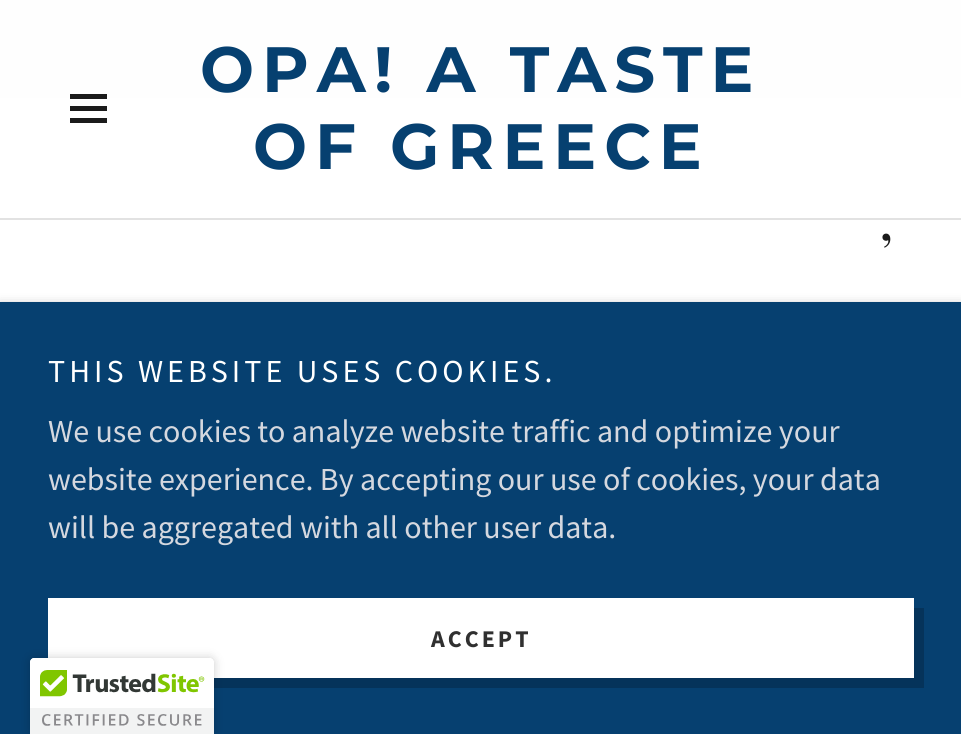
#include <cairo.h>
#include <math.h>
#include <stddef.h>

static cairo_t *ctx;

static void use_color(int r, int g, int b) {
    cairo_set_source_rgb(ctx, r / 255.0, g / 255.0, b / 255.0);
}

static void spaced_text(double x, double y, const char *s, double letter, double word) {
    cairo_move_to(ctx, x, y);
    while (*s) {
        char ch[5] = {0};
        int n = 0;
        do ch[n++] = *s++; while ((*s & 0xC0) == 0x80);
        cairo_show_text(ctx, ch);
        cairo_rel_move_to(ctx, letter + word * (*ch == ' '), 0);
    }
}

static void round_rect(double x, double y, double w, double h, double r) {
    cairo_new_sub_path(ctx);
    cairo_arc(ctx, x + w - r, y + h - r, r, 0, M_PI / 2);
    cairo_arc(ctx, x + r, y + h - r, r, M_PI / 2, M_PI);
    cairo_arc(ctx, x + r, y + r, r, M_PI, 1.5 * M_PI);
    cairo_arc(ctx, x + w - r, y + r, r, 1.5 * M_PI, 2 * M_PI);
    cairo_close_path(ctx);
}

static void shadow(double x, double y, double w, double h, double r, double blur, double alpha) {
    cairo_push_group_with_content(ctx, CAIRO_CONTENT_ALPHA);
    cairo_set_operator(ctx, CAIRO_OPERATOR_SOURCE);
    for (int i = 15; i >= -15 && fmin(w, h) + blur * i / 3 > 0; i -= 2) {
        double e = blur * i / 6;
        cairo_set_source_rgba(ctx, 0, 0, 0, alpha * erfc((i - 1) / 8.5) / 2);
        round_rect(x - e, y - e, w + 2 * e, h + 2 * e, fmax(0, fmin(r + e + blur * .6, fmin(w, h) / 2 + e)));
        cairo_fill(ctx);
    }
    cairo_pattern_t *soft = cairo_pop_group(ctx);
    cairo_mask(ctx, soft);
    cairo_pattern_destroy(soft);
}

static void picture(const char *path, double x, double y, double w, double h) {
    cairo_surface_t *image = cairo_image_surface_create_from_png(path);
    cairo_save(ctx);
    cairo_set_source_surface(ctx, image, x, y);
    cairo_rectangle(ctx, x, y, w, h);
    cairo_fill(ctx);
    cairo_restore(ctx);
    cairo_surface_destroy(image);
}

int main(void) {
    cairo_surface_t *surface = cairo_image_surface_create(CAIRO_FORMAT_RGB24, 961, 734);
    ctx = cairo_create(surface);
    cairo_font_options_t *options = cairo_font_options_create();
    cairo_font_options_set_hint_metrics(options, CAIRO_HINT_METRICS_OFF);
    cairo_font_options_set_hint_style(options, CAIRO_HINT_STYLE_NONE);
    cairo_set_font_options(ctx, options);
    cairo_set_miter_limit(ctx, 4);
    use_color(246, 246, 246);
    cairo_paint(ctx);
    cairo_set_source_rgba(ctx, 1, 1, 1, 0.9);
    cairo_rectangle(ctx, 0, 0, 961, 98);
    cairo_fill(ctx);
    use_color(255, 255, 255);
    cairo_rectangle(ctx, 0, 98, 961, 204);
    cairo_fill(ctx);
    use_color(27, 27, 27);
    cairo_rectangle(ctx, 70, 94, 37, 5);
    cairo_fill(ctx);
    cairo_rectangle(ctx, 70, 106, 37, 5);
    cairo_fill(ctx);
    cairo_rectangle(ctx, 70, 118, 37, 5);
    cairo_fill(ctx);
    cairo_select_font_face(ctx, "Montserrat", CAIRO_FONT_SLANT_NORMAL, CAIRO_FONT_WEIGHT_BOLD);
    cairo_set_font_size(ctx, 64);
    use_color(6, 64, 112);
    spaced_text(200, 92, "OPA! A TASTE", 8, 0);
    spaced_text(253, 169, "OF GREECE", 8, 0);
    use_color(226, 226, 226);
    cairo_rectangle(ctx, 0, 218, 961, 2);
    cairo_fill(ctx);
    cairo_select_font_face(ctx, "Playfair Display", CAIRO_FONT_SLANT_NORMAL, CAIRO_FONT_WEIGHT_NORMAL);
    cairo_set_font_size(ctx, 56);
    use_color(27, 27, 27);
    cairo_move_to(ctx, 879, 240);
    cairo_show_text(ctx, ",");
    use_color(0, 0, 0);
    shadow(0, 306, 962, 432, 0, 6, 0.3);
    use_color(6, 64, 112);
    cairo_rectangle(ctx, 0, 302, 961, 432);
    cairo_fill(ctx);
    cairo_select_font_face(ctx, "Source Sans Pro", CAIRO_FONT_SLANT_NORMAL, CAIRO_FONT_WEIGHT_NORMAL);
    cairo_set_font_size(ctx, 32);
    use_color(255, 255, 255);
    spaced_text(48, 382, "THIS WEBSITE USES COOKIES.", 4, 0);
    use_color(213, 216, 223);
    cairo_move_to(ctx, 48, 442);
    cairo_show_text(ctx, "We use cookies to analyze website traffic and optimize your");
    cairo_move_to(ctx, 48, 490);
    cairo_show_text(ctx, "website experience. By accepting our use of cookies, your data");
    cairo_move_to(ctx, 48, 538);
    cairo_show_text(ctx, "will be aggregated with all other user data.");
    use_color(255, 255, 255);
    cairo_rectangle(ctx, 48, 598, 866, 80);
    cairo_fill(ctx);
    use_color(5, 51, 90);
    cairo_new_path(ctx);
    cairo_move_to(ctx, 58, 678);
    cairo_line_to(ctx, 58, 688);
    cairo_line_to(ctx, 924, 688);
    cairo_line_to(ctx, 924, 608);
    cairo_line_to(ctx, 914, 608);
    cairo_line_to(ctx, 914, 678);
    cairo_close_path(ctx);
    cairo_fill(ctx);
    cairo_select_font_face(ctx, "Source Sans Pro", CAIRO_FONT_SLANT_NORMAL, CAIRO_FONT_WEIGHT_BOLD);
    cairo_set_font_size(ctx, 24);
    use_color(48, 48, 48);
    spaced_text(431, 647, "ACCEPT", 3, 0);
    use_color(0, 0, 0);
    shadow(30, 658, 184, 76, 4, 5, 0.2);
    use_color(255, 255, 255);
    cairo_new_path(ctx);
    cairo_move_to(ctx, 34, 658);
    cairo_line_to(ctx, 210, 658);
    cairo_curve_to(ctx, 212, 658, 214, 660, 214, 662);
    cairo_line_to(ctx, 214, 734);
    cairo_line_to(ctx, 30, 734);
    cairo_line_to(ctx, 30, 662);
    cairo_curve_to(ctx, 30, 660, 32, 658, 34, 658);
    cairo_close_path(ctx);
    cairo_fill(ctx);
    picture("img1.png", 30, 658, 184, 76);
    cairo_surface_write_to_png(surface, "result.png");
    cairo_font_options_destroy(options);
    cairo_destroy(ctx);
    cairo_surface_destroy(surface);
    return 0;
}
